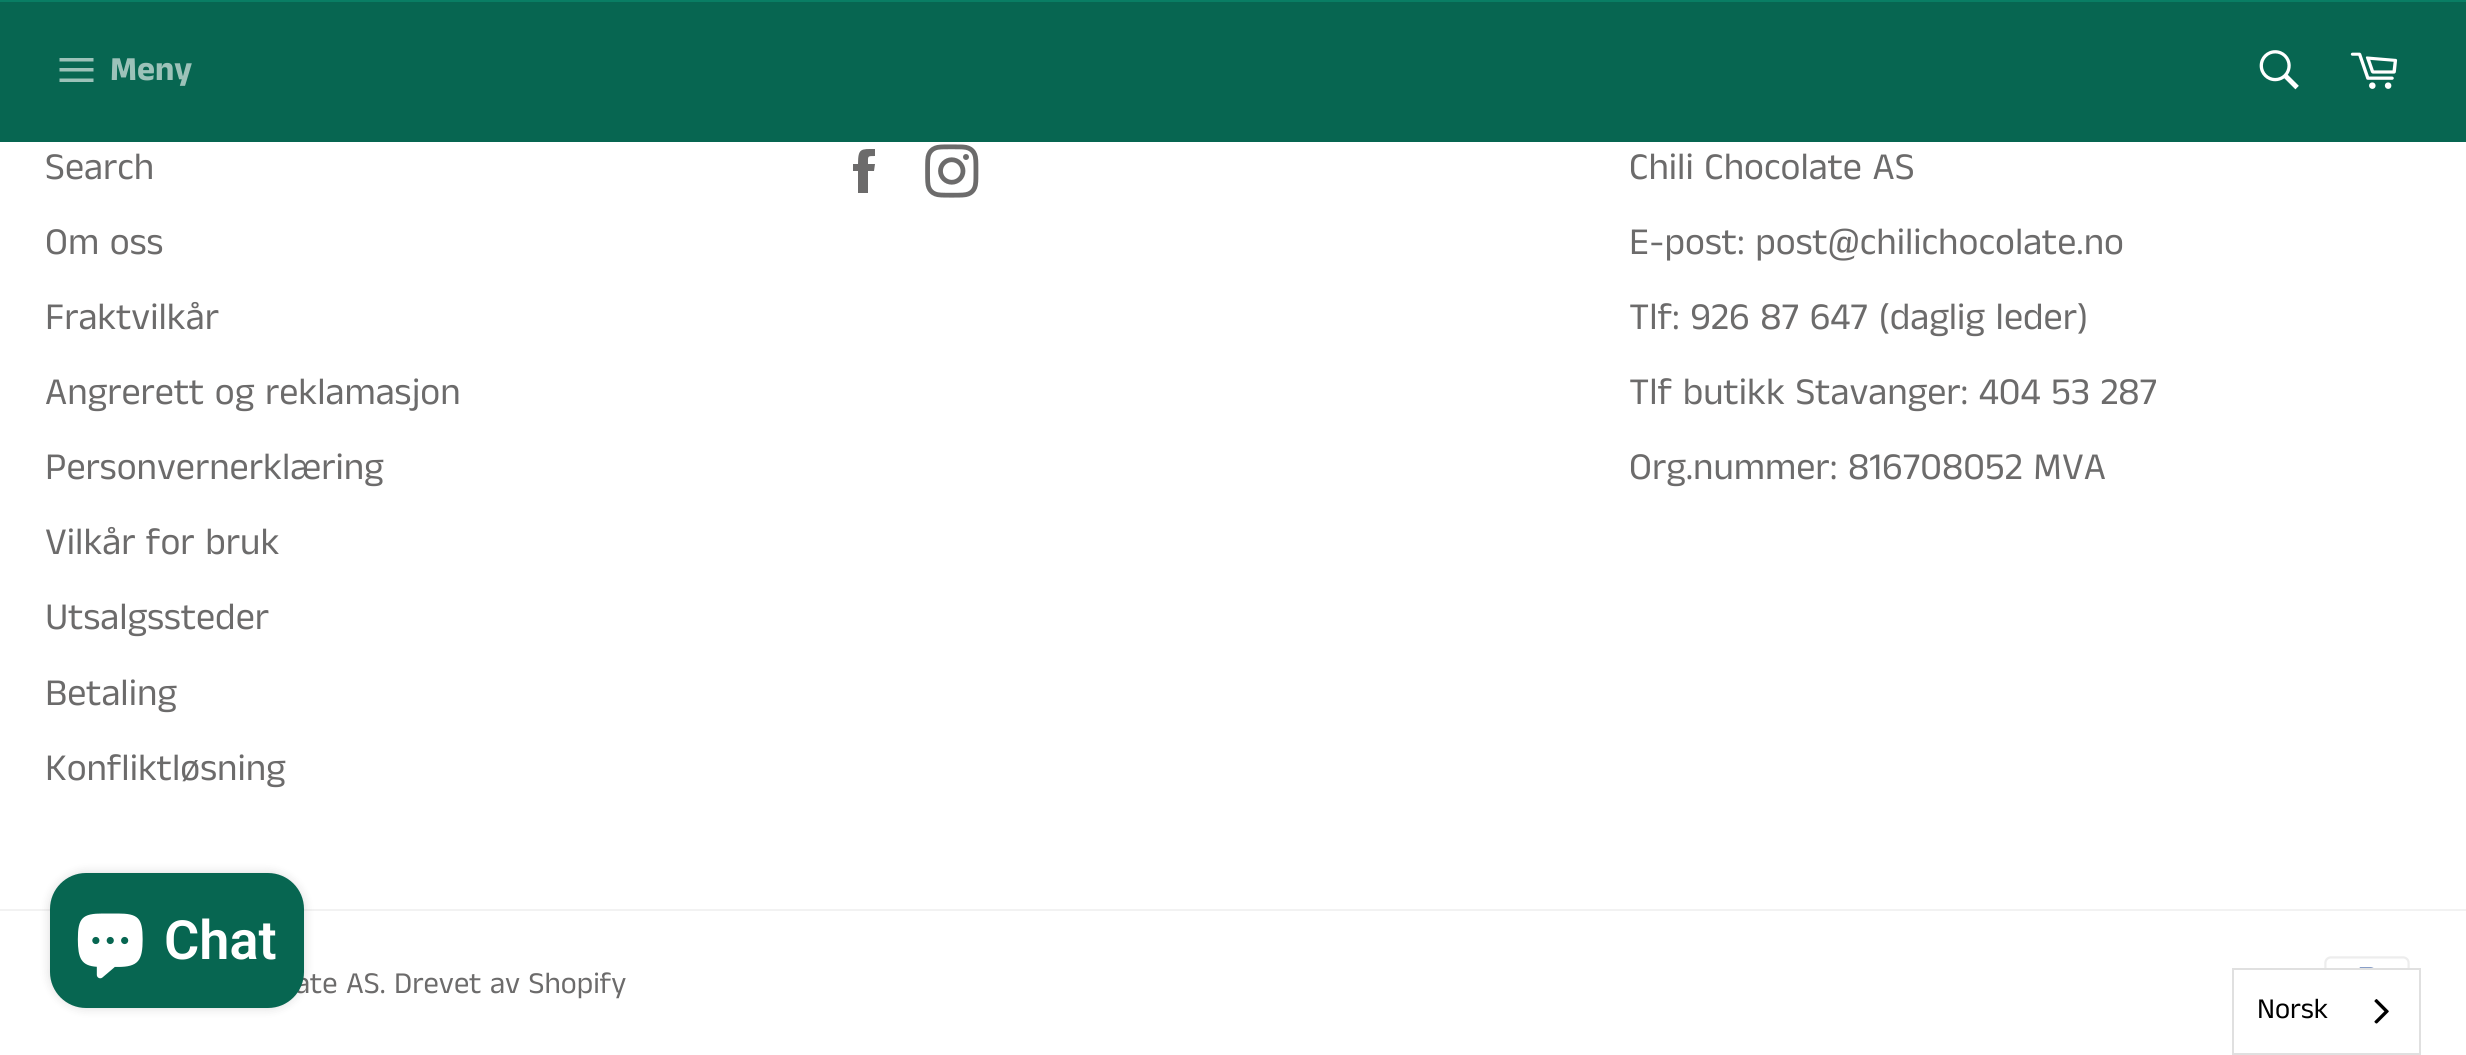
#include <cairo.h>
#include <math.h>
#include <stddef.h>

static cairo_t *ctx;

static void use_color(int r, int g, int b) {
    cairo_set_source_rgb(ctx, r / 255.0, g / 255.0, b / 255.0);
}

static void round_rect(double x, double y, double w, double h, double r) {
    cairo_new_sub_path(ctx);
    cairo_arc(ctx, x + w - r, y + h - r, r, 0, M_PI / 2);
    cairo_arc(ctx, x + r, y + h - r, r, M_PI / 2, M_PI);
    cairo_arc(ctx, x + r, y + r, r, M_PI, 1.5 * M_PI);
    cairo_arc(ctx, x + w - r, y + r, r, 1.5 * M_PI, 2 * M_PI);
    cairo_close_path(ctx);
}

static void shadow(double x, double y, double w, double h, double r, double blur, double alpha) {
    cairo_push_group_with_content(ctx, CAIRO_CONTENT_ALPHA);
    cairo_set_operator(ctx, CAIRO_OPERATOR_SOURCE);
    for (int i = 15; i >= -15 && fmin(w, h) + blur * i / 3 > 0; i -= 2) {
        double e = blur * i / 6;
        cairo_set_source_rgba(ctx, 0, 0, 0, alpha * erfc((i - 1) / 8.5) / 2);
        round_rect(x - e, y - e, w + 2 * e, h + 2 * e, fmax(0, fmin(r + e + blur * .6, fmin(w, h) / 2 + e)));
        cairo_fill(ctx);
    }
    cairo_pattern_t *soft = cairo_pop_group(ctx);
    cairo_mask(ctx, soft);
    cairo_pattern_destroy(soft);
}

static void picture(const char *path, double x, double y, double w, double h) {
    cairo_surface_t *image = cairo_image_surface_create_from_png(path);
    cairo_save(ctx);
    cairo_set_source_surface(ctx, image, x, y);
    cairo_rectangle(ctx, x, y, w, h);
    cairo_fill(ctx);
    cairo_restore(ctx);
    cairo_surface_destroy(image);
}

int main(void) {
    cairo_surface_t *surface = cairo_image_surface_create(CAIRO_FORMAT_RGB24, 2466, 1055);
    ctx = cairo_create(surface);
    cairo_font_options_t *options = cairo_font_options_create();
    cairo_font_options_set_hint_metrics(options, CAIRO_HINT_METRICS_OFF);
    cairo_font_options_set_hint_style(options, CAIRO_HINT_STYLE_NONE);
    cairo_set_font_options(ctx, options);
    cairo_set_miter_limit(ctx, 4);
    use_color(255, 255, 255);
    cairo_paint(ctx);
    use_color(7, 102, 81);
    cairo_rectangle(ctx, 0, 2, 2466, 140);
    cairo_fill(ctx);
    use_color(9, 126, 100);
    cairo_rectangle(ctx, 0, 0, 2466, 2);
    cairo_fill(ctx);
    use_color(156, 194, 185);
    cairo_new_path(ctx);
    cairo_move_to(ctx, 59.5, 68);
    cairo_line_to(ctx, 93.5, 68);
    cairo_line_to(ctx, 93.5, 71.5);
    cairo_line_to(ctx, 59.5, 71.5);
    cairo_close_path(ctx);
    cairo_move_to(ctx, 59.5, 58);
    cairo_line_to(ctx, 93.5, 58);
    cairo_line_to(ctx, 93.5, 61.5);
    cairo_line_to(ctx, 59.5, 61.5);
    cairo_close_path(ctx);
    cairo_move_to(ctx, 59.5, 78.5);
    cairo_line_to(ctx, 93.5, 78.5);
    cairo_line_to(ctx, 93.5, 82);
    cairo_line_to(ctx, 59.5, 82);
    cairo_close_path(ctx);
    cairo_fill(ctx);
    cairo_select_font_face(ctx, "Anek Tamil", CAIRO_FONT_SLANT_NORMAL, CAIRO_FONT_WEIGHT_BOLD);
    cairo_set_font_size(ctx, 34);
    cairo_move_to(ctx, 110, 80);
    cairo_show_text(ctx, "Meny");
    picture("img1.png", 2259, 50, 40, 40);
    picture("img2.png", 2350, 52, 48, 37);
    cairo_select_font_face(ctx, "Anek Tamil", CAIRO_FONT_SLANT_NORMAL, CAIRO_FONT_WEIGHT_NORMAL);
    cairo_set_font_size(ctx, 38.25);
    use_color(108, 107, 107);
    cairo_move_to(ctx, 45, 179);
    cairo_show_text(ctx, "Search");
    cairo_move_to(ctx, 45, 254);
    cairo_show_text(ctx, "Om oss");
    cairo_move_to(ctx, 45, 329);
    cairo_show_text(ctx, "Fraktvilkår");
    cairo_move_to(ctx, 45, 404);
    cairo_show_text(ctx, "Angrerett og reklamasjon");
    cairo_move_to(ctx, 45, 479);
    cairo_show_text(ctx, "Personvernerklæring");
    cairo_move_to(ctx, 45, 554);
    cairo_show_text(ctx, "Vilkår for bruk");
    cairo_move_to(ctx, 45, 629);
    cairo_show_text(ctx, "Utsalgssteder");
    cairo_move_to(ctx, 45, 705);
    cairo_show_text(ctx, "Betaling");
    cairo_move_to(ctx, 45, 780);
    cairo_show_text(ctx, "Konfliktløsning");
    cairo_new_path(ctx);
    cairo_move_to(ctx, 868, 164);
    cairo_curve_to(ctx, 868, 156, 867, 156, 875, 156);
    cairo_line_to(ctx, 875, 149);
    cairo_curve_to(ctx, 861, 149, 858, 148, 858, 164);
    cairo_line_to(ctx, 853, 164);
    cairo_line_to(ctx, 853, 171);
    cairo_line_to(ctx, 858, 171);
    cairo_line_to(ctx, 858, 193);
    cairo_line_to(ctx, 868, 193);
    cairo_line_to(ctx, 868, 171);
    cairo_line_to(ctx, 874, 171);
    cairo_line_to(ctx, 875, 164);
    cairo_close_path(ctx);
    cairo_fill(ctx);
    picture("img3.png", 925, 144, 54, 54);
    cairo_move_to(ctx, 1629, 179);
    cairo_show_text(ctx, "Chili Chocolate AS");
    cairo_move_to(ctx, 1629, 254);
    cairo_show_text(ctx, "E-post: post@chilichocolate.no");
    cairo_move_to(ctx, 1629, 329);
    cairo_show_text(ctx, "Tlf: 926 87 647 (daglig leder)");
    cairo_move_to(ctx, 1629, 404);
    cairo_show_text(ctx, "Tlf butikk Stavanger: 404 53 287");
    cairo_move_to(ctx, 1629, 479);
    cairo_show_text(ctx, "Org.nummer: 816708052 MVA");
    use_color(242, 242, 242);
    cairo_rectangle(ctx, 0, 909, 2466, 2);
    cairo_fill(ctx);
    picture("img4.png", 2324, 956, 86, 12);
    cairo_set_font_size(ctx, 30.6);
    use_color(108, 107, 107);
    cairo_move_to(ctx, 295, 993);
    cairo_show_text(ctx, "ate AS. Drevet av Shopify");
    use_color(0, 0, 0);
    shadow(50, 873, 254, 135, 36, 5.5, 0.15);
    use_color(7, 102, 81);
    round_rect(50, 873, 254, 135, 36);
    cairo_fill(ctx);
    picture("img5.png", 77, 913, 66, 66);
    cairo_select_font_face(ctx, "Roboto SemiBold", CAIRO_FONT_SLANT_NORMAL, CAIRO_FONT_WEIGHT_NORMAL);
    cairo_set_font_size(ctx, 54);
    use_color(255, 255, 255);
    cairo_move_to(ctx, 164, 959);
    cairo_show_text(ctx, "Chat");
    cairo_rectangle(ctx, 2233, 969, 187, 85);
    use_color(224, 224, 224);
    cairo_stroke(ctx);
    cairo_select_font_face(ctx, "Anek Tamil", CAIRO_FONT_SLANT_NORMAL, CAIRO_FONT_WEIGHT_NORMAL);
    cairo_set_font_size(ctx, 29);
    use_color(0, 0, 0);
    cairo_move_to(ctx, 2257, 1018);
    cairo_show_text(ctx, "Norsk");
    picture("img6.png", 2374, 999, 15, 25);
    cairo_surface_write_to_png(surface, "result.png");
    cairo_font_options_destroy(options);
    cairo_destroy(ctx);
    cairo_surface_destroy(surface);
    return 0;
}
